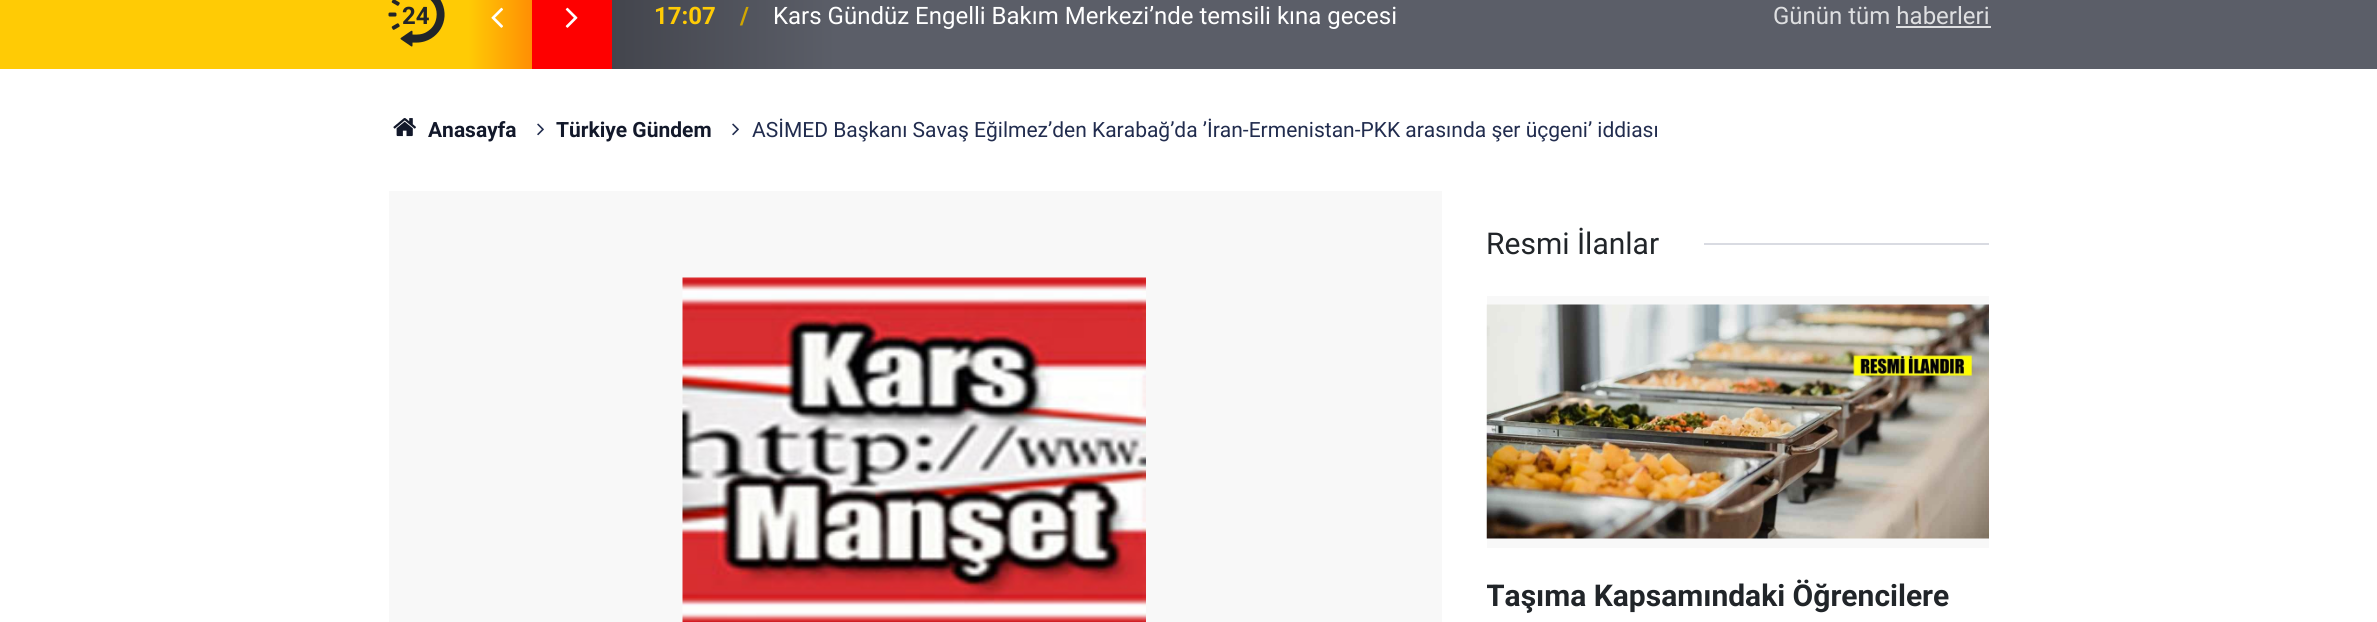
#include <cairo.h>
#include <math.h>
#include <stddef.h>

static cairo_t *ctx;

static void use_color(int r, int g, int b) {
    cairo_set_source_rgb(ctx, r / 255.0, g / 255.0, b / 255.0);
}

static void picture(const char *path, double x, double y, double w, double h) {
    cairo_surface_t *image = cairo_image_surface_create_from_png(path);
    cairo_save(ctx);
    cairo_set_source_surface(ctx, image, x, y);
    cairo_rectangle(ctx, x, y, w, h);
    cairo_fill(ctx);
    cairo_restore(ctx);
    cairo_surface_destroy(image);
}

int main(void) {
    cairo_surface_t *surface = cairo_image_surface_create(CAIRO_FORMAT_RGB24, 2377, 622);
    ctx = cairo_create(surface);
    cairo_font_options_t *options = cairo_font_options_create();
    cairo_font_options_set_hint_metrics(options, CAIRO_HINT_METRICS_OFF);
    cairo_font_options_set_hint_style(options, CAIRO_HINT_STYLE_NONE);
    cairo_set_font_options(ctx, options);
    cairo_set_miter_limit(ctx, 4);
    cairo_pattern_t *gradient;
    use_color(255, 255, 255);
    cairo_paint(ctx);
    use_color(255, 203, 5);
    cairo_rectangle(ctx, 0, 0, 389, 69);
    cairo_fill(ctx);
    use_color(91, 94, 104);
    cairo_rectangle(ctx, 1991, 0, 386, 69);
    cairo_fill(ctx);
    gradient = cairo_pattern_create_linear(388, 17, 1990, 16);
    cairo_pattern_add_color_stop_rgba(gradient, 0.05, 1, 0.796, 0.02, 1);
    cairo_pattern_add_color_stop_rgba(gradient, 0.09, 1, 0.557, 0.016, 1);
    cairo_pattern_add_color_stop_rgba(gradient, 0.09, 0.996, 0, 0, 1);
    cairo_pattern_add_color_stop_rgba(gradient, 0.14, 0.996, 0, 0, 1);
    cairo_pattern_add_color_stop_rgba(gradient, 0.14, 0.263, 0.271, 0.302, 1);
    cairo_pattern_add_color_stop_rgba(gradient, 0.28, 0.357, 0.369, 0.408, 1);
    cairo_set_source(ctx, gradient);
    cairo_pattern_destroy(gradient);
    cairo_rectangle(ctx, 389, 0, 1602, 69);
    cairo_fill(ctx);
    picture("img1.png", 388, 0, 57, 47);
    cairo_select_font_face(ctx, "Roboto", CAIRO_FONT_SLANT_NORMAL, CAIRO_FONT_WEIGHT_BOLD);
    cairo_set_font_size(ctx, 24);
    use_color(33, 37, 41);
    cairo_move_to(ctx, 402, 24);
    cairo_show_text(ctx, "24");
    picture("img2.png", 491, 7, 12, 21);
    picture("img3.png", 565, 7, 13, 21);
    use_color(255, 203, 5);
    cairo_move_to(ctx, 654, 24);
    cairo_show_text(ctx, "17:07");
    use_color(209, 166, 0);
    cairo_move_to(ctx, 740, 24);
    cairo_show_text(ctx, "/");
    cairo_select_font_face(ctx, "Roboto", CAIRO_FONT_SLANT_NORMAL, CAIRO_FONT_WEIGHT_NORMAL);
    use_color(255, 255, 255);
    cairo_move_to(ctx, 773, 24);
    cairo_show_text(ctx, "Kars Gündüz Engelli Bakım Merkezi’nde temsili kına gecesi");
    use_color(222, 223, 225);
    cairo_move_to(ctx, 1773, 24);
    cairo_show_text(ctx, "Günün tüm haberleri");
    cairo_rectangle(ctx, 1896, 26, 95, 2);
    cairo_fill(ctx);
    picture("img4.png", 393, 118, 23, 19);
    cairo_select_font_face(ctx, "Roboto", CAIRO_FONT_SLANT_NORMAL, CAIRO_FONT_WEIGHT_BOLD);
    cairo_set_font_size(ctx, 21);
    use_color(18, 24, 42);
    cairo_move_to(ctx, 428, 137);
    cairo_show_text(ctx, "Anasayfa");
    picture("img5.png", 537, 123, 7, 13);
    cairo_move_to(ctx, 556, 137);
    cairo_show_text(ctx, "Türkiye Gündem");
    picture("img5.png", 732, 123, 7, 13);
    cairo_select_font_face(ctx, "Roboto", CAIRO_FONT_SLANT_NORMAL, CAIRO_FONT_WEIGHT_NORMAL);
    use_color(33, 44, 78);
    cairo_move_to(ctx, 752, 137);
    cairo_show_text(ctx, "ASİMED Başkanı Savaş Eğilmez’den Karabağ’da ’İran-Ermenistan-PKK arasında şer üçgeni’ iddiası");
    use_color(248, 248, 248);
    cairo_rectangle(ctx, 389, 191, 1053, 431);
    cairo_fill(ctx);
    picture("img6.png", 682, 277, 464, 345);
    cairo_set_font_size(ctx, 30);
    use_color(33, 37, 41);
    cairo_move_to(ctx, 1486, 254);
    cairo_show_text(ctx, "Resmi İlanlar");
    use_color(217, 219, 226);
    cairo_rectangle(ctx, 1704, 243, 285, 2);
    cairo_fill(ctx);
    use_color(248, 248, 248);
    cairo_rectangle(ctx, 1487, 296, 502, 252);
    cairo_fill(ctx);
    picture("img7.png", 1486, 304, 503, 235);
    cairo_save(ctx);
    cairo_rectangle(ctx, 1487, 578, 502, 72);
    cairo_clip(ctx);
    cairo_select_font_face(ctx, "Roboto", CAIRO_FONT_SLANT_NORMAL, CAIRO_FONT_WEIGHT_BOLD);
    use_color(33, 37, 41);
    cairo_move_to(ctx, 1486, 606);
    cairo_show_text(ctx, "Taşıma Kapsamındaki Öğrencilere");
    cairo_restore(ctx);
    cairo_surface_write_to_png(surface, "result.png");
    cairo_font_options_destroy(options);
    cairo_destroy(ctx);
    cairo_surface_destroy(surface);
    return 0;
}
